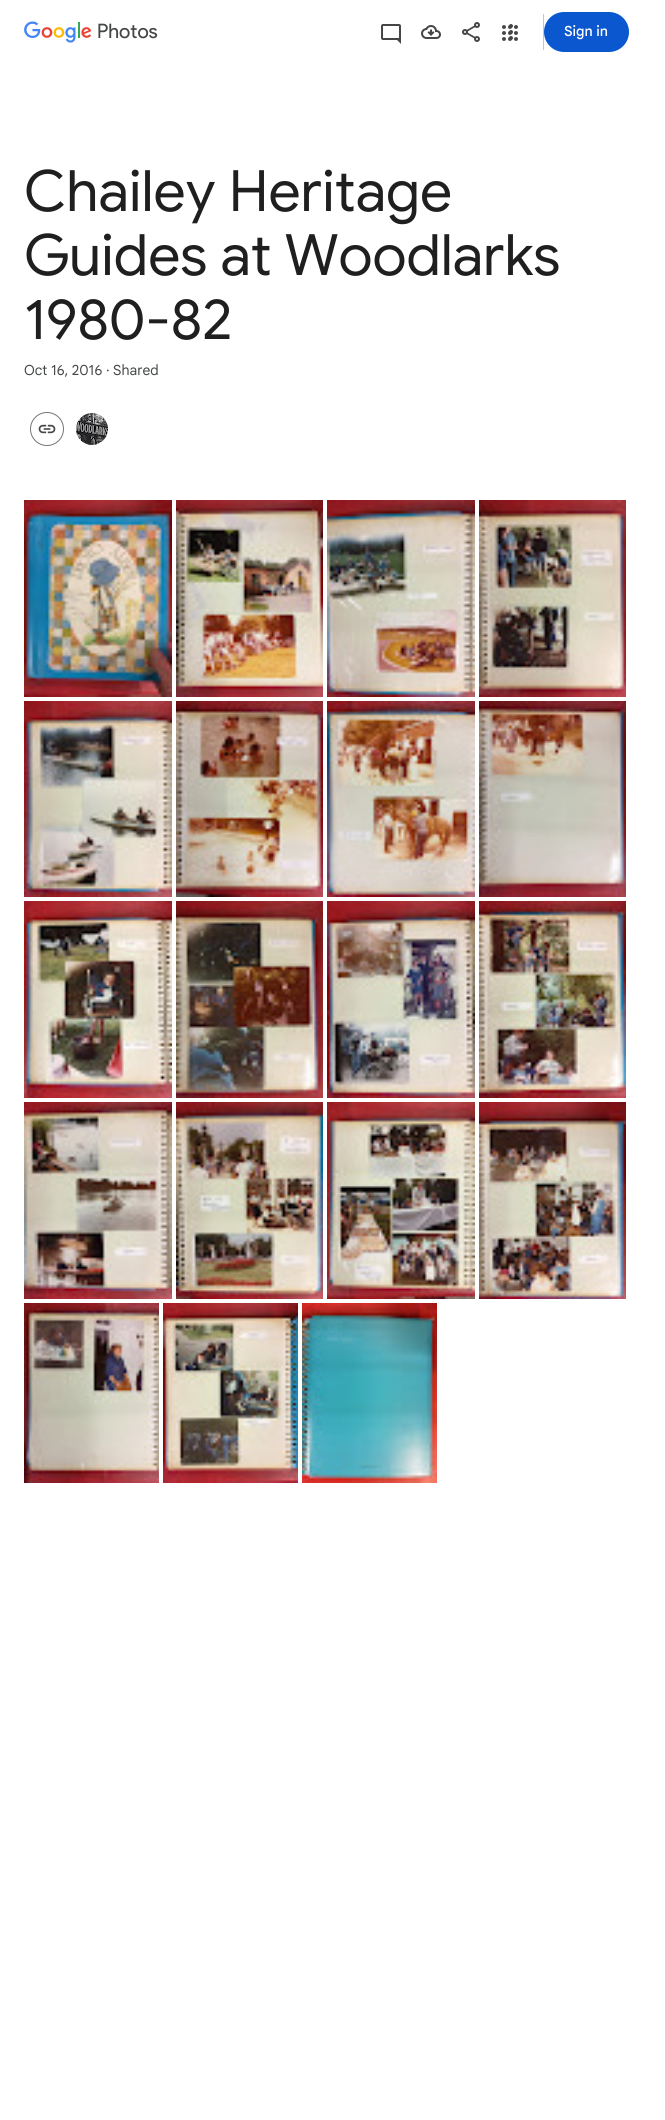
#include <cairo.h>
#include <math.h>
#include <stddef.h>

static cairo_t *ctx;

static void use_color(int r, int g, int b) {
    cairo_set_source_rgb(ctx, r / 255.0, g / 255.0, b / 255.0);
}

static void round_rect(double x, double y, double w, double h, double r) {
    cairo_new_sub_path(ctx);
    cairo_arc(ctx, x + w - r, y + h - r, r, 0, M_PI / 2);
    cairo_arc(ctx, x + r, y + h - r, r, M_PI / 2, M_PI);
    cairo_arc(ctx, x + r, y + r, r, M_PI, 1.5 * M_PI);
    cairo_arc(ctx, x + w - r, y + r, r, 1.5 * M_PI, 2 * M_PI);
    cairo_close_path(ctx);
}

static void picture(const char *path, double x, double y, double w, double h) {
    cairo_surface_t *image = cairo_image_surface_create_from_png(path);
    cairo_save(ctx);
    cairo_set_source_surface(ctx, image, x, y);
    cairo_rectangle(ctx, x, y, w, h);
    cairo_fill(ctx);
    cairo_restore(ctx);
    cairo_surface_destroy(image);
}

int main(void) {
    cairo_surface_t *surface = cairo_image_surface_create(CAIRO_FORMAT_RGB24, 665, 2120);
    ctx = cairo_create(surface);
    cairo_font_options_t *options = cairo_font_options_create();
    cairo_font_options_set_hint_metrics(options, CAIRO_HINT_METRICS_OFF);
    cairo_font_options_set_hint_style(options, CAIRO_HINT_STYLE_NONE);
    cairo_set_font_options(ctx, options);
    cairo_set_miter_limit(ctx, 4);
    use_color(255, 255, 255);
    cairo_paint(ctx);
    picture("img1.png", 24, 21, 68, 22);
    cairo_select_font_face(ctx, "Product Sans", CAIRO_FONT_SLANT_NORMAL, CAIRO_FONT_WEIGHT_NORMAL);
    cairo_set_font_size(ctx, 20);
    use_color(68, 71, 70);
    cairo_move_to(ctx, 97, 38);
    cairo_show_text(ctx, "Photos");
    picture("img2.png", 381, 24, 20, 20);
    picture("img3.png", 421, 25, 20, 14);
    picture("img4.png", 462, 22, 18, 20);
    picture("img5.png", 509, 24, 4, 16);
    use_color(196, 199, 197);
    cairo_rectangle(ctx, 543, 14, 1, 36);
    cairo_fill(ctx);
    cairo_select_font_face(ctx, "Google Sans", CAIRO_FONT_SLANT_NORMAL, CAIRO_FONT_WEIGHT_NORMAL);
    cairo_set_font_size(ctx, 57);
    use_color(31, 31, 31);
    cairo_move_to(ctx, 24, 211);
    cairo_show_text(ctx, "Chailey Heritage");
    cairo_move_to(ctx, 24, 275);
    cairo_show_text(ctx, "Guides at Woodlarks");
    cairo_move_to(ctx, 24, 339);
    cairo_show_text(ctx, "1980-82");
    cairo_select_font_face(ctx, "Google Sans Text", CAIRO_FONT_SLANT_NORMAL, CAIRO_FONT_WEIGHT_NORMAL);
    cairo_set_font_size(ctx, 14);
    use_color(68, 71, 70);
    cairo_move_to(ctx, 24, 375);
    cairo_show_text(ctx, "Oct 16, 2016 · Shared");
    cairo_new_path(ctx);
    cairo_arc(ctx, 47, 429, 16.5, 0, 2 * M_PI);
    use_color(116, 119, 117);
    cairo_set_line_width(ctx, 1);
    cairo_stroke(ctx);
    picture("img6.png", 38, 424, 18, 10);
    picture("img7.png", 76, 413, 32, 32);
    picture("img8.png", 24, 500, 148, 197);
    picture("img9.png", 176, 500, 147, 197);
    picture("img10.png", 327, 500, 148, 197);
    picture("img11.png", 479, 500, 147, 197);
    picture("img12.png", 24, 701, 148, 196);
    picture("img13.png", 176, 701, 147, 196);
    picture("img14.png", 327, 701, 148, 196);
    picture("img15.png", 479, 701, 147, 196);
    picture("img16.png", 24, 901, 148, 197);
    picture("img17.png", 176, 901, 147, 197);
    picture("img18.png", 327, 901, 148, 197);
    picture("img19.png", 479, 901, 147, 197);
    picture("img20.png", 24, 1102, 148, 197);
    picture("img21.png", 176, 1102, 147, 197);
    picture("img22.png", 327, 1102, 148, 197);
    picture("img23.png", 479, 1102, 147, 197);
    picture("img24.png", 24, 1303, 135, 180);
    picture("img25.png", 163, 1303, 135, 180);
    picture("img26.png", 302, 1303, 135, 180);
    picture("img27.png", 502, 25, 16, 16);
    use_color(11, 87, 208);
    round_rect(544, 12, 85, 40, 20);
    cairo_fill(ctx);
    cairo_select_font_face(ctx, "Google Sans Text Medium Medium", CAIRO_FONT_SLANT_NORMAL, CAIRO_FONT_WEIGHT_NORMAL);
    use_color(255, 255, 255);
    cairo_move_to(ctx, 564, 36);
    cairo_show_text(ctx, "Sign in");
    cairo_surface_write_to_png(surface, "result.png");
    cairo_font_options_destroy(options);
    cairo_destroy(ctx);
    cairo_surface_destroy(surface);
    return 0;
}
